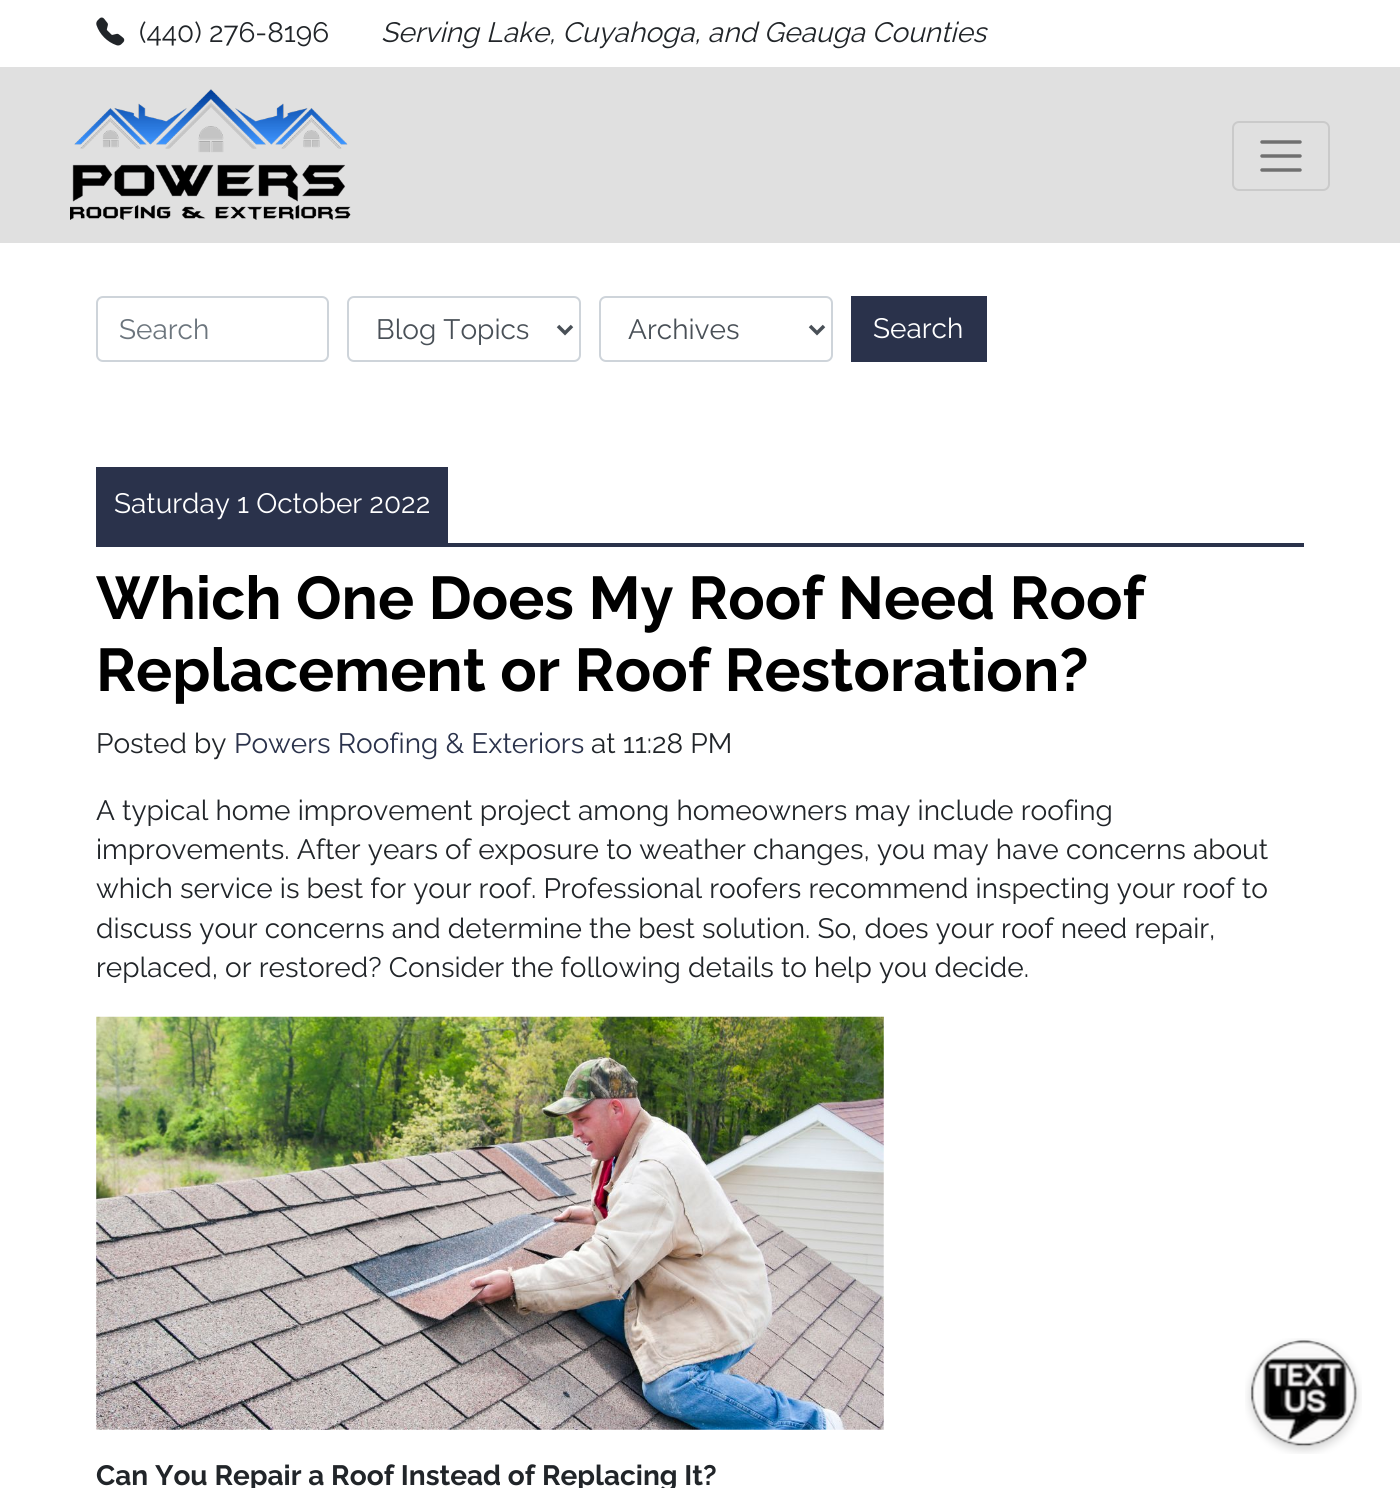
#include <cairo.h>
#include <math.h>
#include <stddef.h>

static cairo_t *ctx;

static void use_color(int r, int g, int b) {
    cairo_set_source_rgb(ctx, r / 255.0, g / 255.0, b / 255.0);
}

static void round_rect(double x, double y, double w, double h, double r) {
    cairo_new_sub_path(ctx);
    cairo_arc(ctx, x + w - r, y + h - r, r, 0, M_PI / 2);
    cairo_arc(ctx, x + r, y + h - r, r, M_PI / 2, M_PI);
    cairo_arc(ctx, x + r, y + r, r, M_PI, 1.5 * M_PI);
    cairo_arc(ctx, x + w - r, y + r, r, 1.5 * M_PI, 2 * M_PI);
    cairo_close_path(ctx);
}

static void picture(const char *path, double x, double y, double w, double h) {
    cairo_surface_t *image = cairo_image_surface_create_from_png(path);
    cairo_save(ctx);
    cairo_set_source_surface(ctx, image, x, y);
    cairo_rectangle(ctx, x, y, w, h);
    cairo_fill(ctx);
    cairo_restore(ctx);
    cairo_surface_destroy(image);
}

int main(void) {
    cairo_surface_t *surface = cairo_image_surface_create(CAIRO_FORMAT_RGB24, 1400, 1488);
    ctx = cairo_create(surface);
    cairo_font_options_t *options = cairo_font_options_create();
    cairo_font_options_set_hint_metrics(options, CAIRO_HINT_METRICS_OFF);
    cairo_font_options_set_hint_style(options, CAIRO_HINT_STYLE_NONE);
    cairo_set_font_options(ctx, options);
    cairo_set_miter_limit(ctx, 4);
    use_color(255, 255, 255);
    cairo_paint(ctx);
    picture("img1.png", 96, 17, 29, 29);
    cairo_select_font_face(ctx, "Raleway", CAIRO_FONT_SLANT_NORMAL, CAIRO_FONT_WEIGHT_NORMAL);
    cairo_set_font_size(ctx, 28);
    use_color(33, 37, 41);
    cairo_move_to(ctx, 139, 42);
    cairo_show_text(ctx, "(440) 276-8196");
    cairo_select_font_face(ctx, "Raleway", CAIRO_FONT_SLANT_ITALIC, CAIRO_FONT_WEIGHT_NORMAL);
    cairo_move_to(ctx, 381, 42);
    cairo_show_text(ctx, "Serving Lake, Cuyahoga, and Geauga Counties");
    use_color(224, 224, 224);
    cairo_rectangle(ctx, 0, 67, 1400, 176);
    cairo_fill(ctx);
    picture("img2.png", 70, 89, 281, 131);
    round_rect(1233, 122, 96, 68, 6);
    use_color(202, 202, 202);
    cairo_stroke(ctx);
    cairo_new_path(ctx);
    cairo_move_to(ctx, 1262, 142);
    cairo_line_to(ctx, 1300, 142);
    cairo_move_to(ctx, 1262, 156);
    cairo_line_to(ctx, 1300, 156);
    cairo_move_to(ctx, 1262, 170);
    cairo_line_to(ctx, 1300, 170);
    use_color(112, 112, 112);
    cairo_set_line_width(ctx, 3.5);
    cairo_set_line_cap(ctx, CAIRO_LINE_CAP_ROUND);
    cairo_stroke(ctx);
    round_rect(97, 297, 231, 64, 6);
    use_color(206, 212, 218);
    cairo_set_line_width(ctx, 2);
    cairo_set_line_cap(ctx, CAIRO_LINE_CAP_BUTT);
    cairo_stroke(ctx);
    cairo_select_font_face(ctx, "Raleway", CAIRO_FONT_SLANT_NORMAL, CAIRO_FONT_WEIGHT_NORMAL);
    use_color(108, 117, 125);
    cairo_move_to(ctx, 119, 339);
    cairo_show_text(ctx, "Search");
    round_rect(348, 297, 232, 64, 6);
    use_color(206, 212, 218);
    cairo_stroke(ctx);
    cairo_new_path(ctx);
    cairo_move_to(ctx, 558, 326);
    cairo_line_to(ctx, 565, 333);
    cairo_line_to(ctx, 572, 326);
    use_color(73, 80, 87);
    cairo_set_line_width(ctx, 3.5);
    cairo_stroke(ctx);
    cairo_move_to(ctx, 376, 339);
    cairo_show_text(ctx, "Blog Topics");
    round_rect(600, 297, 232, 64, 6);
    use_color(206, 212, 218);
    cairo_set_line_width(ctx, 2);
    cairo_stroke(ctx);
    cairo_new_path(ctx);
    cairo_move_to(ctx, 810, 326);
    cairo_line_to(ctx, 817, 333);
    cairo_line_to(ctx, 824, 326);
    use_color(73, 80, 87);
    cairo_set_line_width(ctx, 3.5);
    cairo_stroke(ctx);
    cairo_move_to(ctx, 628, 339);
    cairo_show_text(ctx, "Archives");
    use_color(42, 50, 75);
    cairo_rectangle(ctx, 851, 296, 136, 66);
    cairo_fill(ctx);
    use_color(255, 255, 255);
    cairo_move_to(ctx, 873, 338);
    cairo_show_text(ctx, "Search");
    use_color(42, 50, 75);
    cairo_rectangle(ctx, 96, 543, 1208, 4);
    cairo_fill(ctx);
    cairo_rectangle(ctx, 96, 467, 352, 76);
    cairo_fill(ctx);
    use_color(255, 255, 255);
    cairo_move_to(ctx, 114, 513);
    cairo_show_text(ctx, "Saturday 1 October 2022");
    cairo_select_font_face(ctx, "Raleway", CAIRO_FONT_SLANT_NORMAL, CAIRO_FONT_WEIGHT_BOLD);
    cairo_set_font_size(ctx, 60.25);
    use_color(0, 0, 0);
    cairo_move_to(ctx, 96, 619);
    cairo_show_text(ctx, "Which One Does My Roof Need Roof");
    cairo_move_to(ctx, 96, 691);
    cairo_show_text(ctx, "Replacement or Roof Restoration?");
    cairo_select_font_face(ctx, "Raleway", CAIRO_FONT_SLANT_NORMAL, CAIRO_FONT_WEIGHT_NORMAL);
    cairo_set_font_size(ctx, 28);
    use_color(33, 37, 41);
    cairo_move_to(ctx, 96, 753);
    cairo_show_text(ctx, "Posted by");
    use_color(42, 50, 75);
    cairo_move_to(ctx, 234, 753);
    cairo_show_text(ctx, "Powers Roofing & Exteriors");
    use_color(33, 37, 41);
    cairo_move_to(ctx, 591, 753);
    cairo_show_text(ctx, "at 11:28 PM");
    cairo_move_to(ctx, 96, 820);
    cairo_show_text(ctx, "A typical home improvement project among homeowners may include roofing");
    cairo_move_to(ctx, 96, 859);
    cairo_show_text(ctx, "improvements. After years of exposure to weather changes, you may have concerns about");
    cairo_move_to(ctx, 96, 898);
    cairo_show_text(ctx, "which service is best for your roof. Professional roofers recommend inspecting your roof to");
    cairo_move_to(ctx, 96, 938);
    cairo_show_text(ctx, "discuss your concerns and determine the best solution. So, does your roof need repair,");
    cairo_move_to(ctx, 96, 977);
    cairo_show_text(ctx, "replaced, or restored? Consider the following details to help you decide.");
    picture("img3.png", 96, 1016, 788, 414);
    cairo_select_font_face(ctx, "Raleway", CAIRO_FONT_SLANT_NORMAL, CAIRO_FONT_WEIGHT_BOLD);
    cairo_move_to(ctx, 96, 1485);
    cairo_show_text(ctx, "Can You Repair a Roof Instead of Replacing It?");
    picture("img4.png", 1245, 1338, 117, 116);
    cairo_surface_write_to_png(surface, "result.png");
    cairo_font_options_destroy(options);
    cairo_destroy(ctx);
    cairo_surface_destroy(surface);
    return 0;
}
